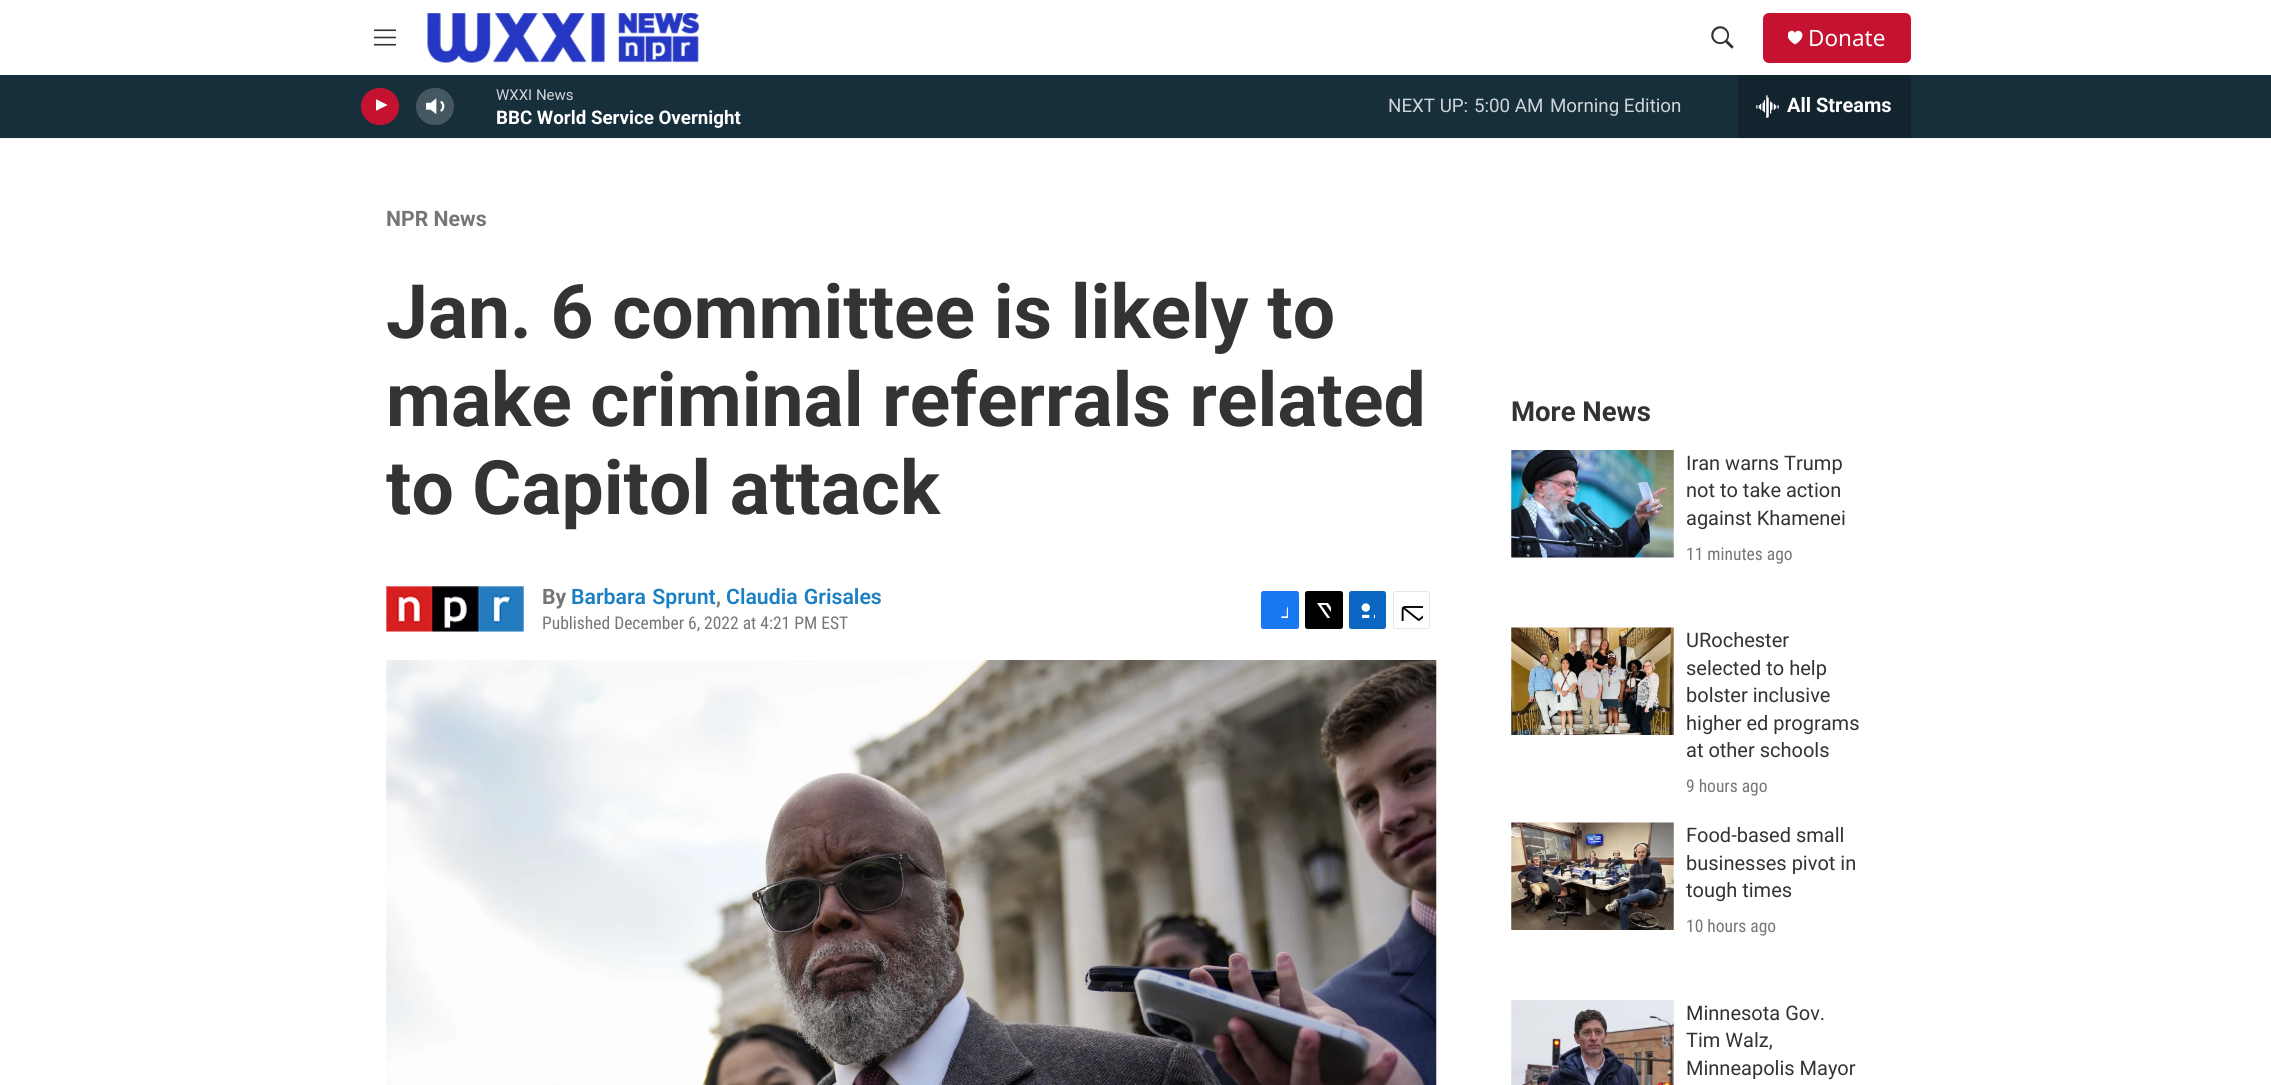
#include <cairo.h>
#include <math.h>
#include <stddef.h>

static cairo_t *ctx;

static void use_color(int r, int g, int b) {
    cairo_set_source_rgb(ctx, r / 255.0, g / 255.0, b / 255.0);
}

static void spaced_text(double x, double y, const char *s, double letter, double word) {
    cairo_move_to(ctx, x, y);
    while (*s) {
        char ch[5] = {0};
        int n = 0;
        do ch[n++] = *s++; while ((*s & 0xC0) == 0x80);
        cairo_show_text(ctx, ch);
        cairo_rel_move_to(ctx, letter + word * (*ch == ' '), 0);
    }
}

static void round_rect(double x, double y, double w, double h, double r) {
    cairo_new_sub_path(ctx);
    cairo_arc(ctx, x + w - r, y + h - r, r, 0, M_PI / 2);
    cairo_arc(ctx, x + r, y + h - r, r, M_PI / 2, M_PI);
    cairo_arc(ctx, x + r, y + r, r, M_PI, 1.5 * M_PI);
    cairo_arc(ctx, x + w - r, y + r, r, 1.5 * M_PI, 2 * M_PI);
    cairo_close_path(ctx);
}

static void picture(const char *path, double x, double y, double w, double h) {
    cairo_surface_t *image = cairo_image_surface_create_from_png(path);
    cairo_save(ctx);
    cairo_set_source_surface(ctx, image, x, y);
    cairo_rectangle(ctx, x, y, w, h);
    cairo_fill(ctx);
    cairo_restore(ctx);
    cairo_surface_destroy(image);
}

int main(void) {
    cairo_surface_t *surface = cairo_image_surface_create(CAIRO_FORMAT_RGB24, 2271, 1085);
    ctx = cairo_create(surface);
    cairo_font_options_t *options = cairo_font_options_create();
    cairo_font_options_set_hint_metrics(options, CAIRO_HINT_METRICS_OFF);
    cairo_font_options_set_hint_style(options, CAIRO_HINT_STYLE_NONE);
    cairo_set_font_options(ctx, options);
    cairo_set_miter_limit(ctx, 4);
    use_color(255, 255, 255);
    cairo_paint(ctx);
    use_color(245, 245, 245);
    cairo_rectangle(ctx, 0, 138, 2271, 1);
    cairo_fill(ctx);
    picture("img1.png", 374, 29, 22, 17);
    picture("img2.png", 427, 13, 272, 50);
    picture("img3.png", 1711, 26, 23, 23);
    use_color(196, 18, 48);
    round_rect(1763, 13, 148, 50, 6);
    cairo_fill(ctx);
    cairo_save(ctx);
    cairo_rectangle(ctx, 1788, 30, 15, 15);
    cairo_clip(ctx);
    use_color(255, 255, 255);
    cairo_new_path(ctx);
    cairo_move_to(ctx, 1795, 33);
    cairo_curve_to(ctx, 1792.5, 26.5, 1779.5, 35, 1795, 44.5);
    cairo_curve_to(ctx, 1810.5, 35, 1797.5, 26.5, 1795, 33);
    cairo_close_path(ctx);
    cairo_fill(ctx);
    cairo_restore(ctx);
    cairo_select_font_face(ctx, "Noto Sans", CAIRO_FONT_SLANT_NORMAL, CAIRO_FONT_WEIGHT_NORMAL);
    cairo_set_font_size(ctx, 22.5);
    use_color(255, 255, 255);
    cairo_move_to(ctx, 1808, 46);
    cairo_show_text(ctx, "Donate");
    use_color(23, 46, 59);
    cairo_rectangle(ctx, 0, 75, 2271, 63);
    cairo_fill(ctx);
    use_color(196, 18, 48);
    round_rect(361, 88, 38, 37, 18.5);
    cairo_fill(ctx);
    cairo_save(ctx);
    cairo_rectangle(ctx, 376, 98, 14, 18);
    cairo_clip(ctx);
    use_color(255, 255, 255);
    cairo_new_path(ctx);
    cairo_move_to(ctx, 375.5, 99);
    cairo_line_to(ctx, 387.5, 105);
    cairo_line_to(ctx, 375.5, 111);
    cairo_close_path(ctx);
    cairo_fill(ctx);
    cairo_restore(ctx);
    picture("img4.png", 426, 98, 19, 17);
    cairo_set_source_rgba(ctx, 1, 1, 1, 0.2);
    round_rect(416, 88, 38, 37, 18.5);
    cairo_fill(ctx);
    cairo_select_font_face(ctx, "Roboto", CAIRO_FONT_SLANT_NORMAL, CAIRO_FONT_WEIGHT_NORMAL);
    cairo_set_font_size(ctx, 15);
    use_color(209, 213, 216);
    cairo_move_to(ctx, 496, 100);
    cairo_show_text(ctx, "WXXI News");
    cairo_select_font_face(ctx, "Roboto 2", CAIRO_FONT_SLANT_NORMAL, CAIRO_FONT_WEIGHT_BOLD);
    cairo_set_font_size(ctx, 18.75);
    use_color(255, 255, 255);
    cairo_move_to(ctx, 496, 124);
    cairo_show_text(ctx, "BBC World Service Overnight");
    cairo_select_font_face(ctx, "Roboto", CAIRO_FONT_SLANT_NORMAL, CAIRO_FONT_WEIGHT_NORMAL);
    use_color(209, 213, 216);
    cairo_move_to(ctx, 1388, 112);
    cairo_show_text(ctx, "NEXT UP:");
    cairo_move_to(ctx, 1474, 112);
    cairo_show_text(ctx, "5:00 AM");
    cairo_move_to(ctx, 1550, 112);
    cairo_show_text(ctx, "Morning Edition");
    use_color(18, 37, 47);
    cairo_rectangle(ctx, 1738, 75, 173, 63);
    cairo_fill(ctx);
    picture("img5.png", 1756, 95, 23, 23);
    cairo_select_font_face(ctx, "Roboto 2", CAIRO_FONT_SLANT_NORMAL, CAIRO_FONT_WEIGHT_BOLD);
    cairo_set_font_size(ctx, 20);
    use_color(255, 255, 255);
    cairo_move_to(ctx, 1787, 112);
    cairo_show_text(ctx, "All Streams");
    cairo_select_font_face(ctx, "Roboto", CAIRO_FONT_SLANT_NORMAL, CAIRO_FONT_WEIGHT_BOLD);
    cairo_set_font_size(ctx, 21.25);
    use_color(118, 118, 118);
    cairo_move_to(ctx, 386, 226);
    cairo_show_text(ctx, "NPR News");
    cairo_set_font_size(ctx, 75);
    use_color(51, 51, 51);
    cairo_move_to(ctx, 386, 338);
    cairo_show_text(ctx, "Jan. 6 committee is likely to");
    cairo_move_to(ctx, 386, 426);
    cairo_show_text(ctx, "make criminal referrals related");
    cairo_move_to(ctx, 386, 514);
    cairo_show_text(ctx, "to Capitol attack");
    picture("img6.png", 386, 586, 138, 47);
    cairo_set_font_size(ctx, 21.25);
    use_color(118, 118, 118);
    cairo_move_to(ctx, 542, 604);
    cairo_show_text(ctx, "By");
    cairo_select_font_face(ctx, "Roboto SemiBold", CAIRO_FONT_SLANT_NORMAL, CAIRO_FONT_WEIGHT_NORMAL);
    use_color(26, 127, 195);
    spaced_text(571, 604, "Barbara Sprunt", 0, 1);
    use_color(118, 118, 118);
    cairo_move_to(ctx, 716, 604);
    cairo_show_text(ctx, ",");
    use_color(26, 127, 195);
    spaced_text(726, 604, "Claudia Grisales", 0, 1);
    cairo_select_font_face(ctx, "Roboto Condensed", CAIRO_FONT_SLANT_NORMAL, CAIRO_FONT_WEIGHT_NORMAL);
    cairo_set_font_size(ctx, 17.5);
    use_color(118, 118, 118);
    cairo_move_to(ctx, 542, 629);
    cairo_show_text(ctx, "Published December 6, 2022 at 4:21 PM EST");
    use_color(23, 120, 242);
    round_rect(1261, 591, 38, 38, 2.5);
    cairo_fill(ctx);
    picture("img7.png", 1281, 606, 7, 12);
    use_color(0, 0, 0);
    round_rect(1305, 591, 38, 38, 2.5);
    cairo_fill(ctx);
    picture("img8.png", 1317, 603, 14, 15);
    use_color(10, 102, 193);
    round_rect(1349, 591, 37, 38, 2.5);
    cairo_fill(ctx);
    picture("img9.png", 1361, 603, 14, 15);
    round_rect(1393.5, 591.5, 36, 37, 2);
    use_color(230, 230, 230);
    cairo_set_line_width(ctx, 1);
    cairo_stroke(ctx);
    picture("img10.png", 1401, 606, 22, 15);
    picture("img11.png", 386, 660, 1051, 425);
    cairo_select_font_face(ctx, "Roboto", CAIRO_FONT_SLANT_NORMAL, CAIRO_FONT_WEIGHT_BOLD);
    cairo_set_font_size(ctx, 27.5);
    use_color(51, 51, 51);
    cairo_move_to(ctx, 1511, 421);
    cairo_show_text(ctx, "More News");
    picture("img12.png", 1511, 450, 163, 108);
    cairo_select_font_face(ctx, "Roboto", CAIRO_FONT_SLANT_NORMAL, CAIRO_FONT_WEIGHT_NORMAL);
    cairo_set_font_size(ctx, 20);
    cairo_move_to(ctx, 1686, 470);
    cairo_show_text(ctx, "Iran warns Trump");
    cairo_move_to(ctx, 1686, 497);
    cairo_show_text(ctx, "not to take action");
    cairo_move_to(ctx, 1686, 525);
    cairo_show_text(ctx, "against Khamenei");
    cairo_select_font_face(ctx, "Roboto Condensed", CAIRO_FONT_SLANT_NORMAL, CAIRO_FONT_WEIGHT_NORMAL);
    cairo_set_font_size(ctx, 17.5);
    use_color(118, 118, 118);
    cairo_move_to(ctx, 1686, 560);
    cairo_show_text(ctx, "11 minutes ago");
    picture("img13.png", 1511, 627, 163, 108);
    cairo_select_font_face(ctx, "Roboto", CAIRO_FONT_SLANT_NORMAL, CAIRO_FONT_WEIGHT_NORMAL);
    cairo_set_font_size(ctx, 20);
    use_color(51, 51, 51);
    cairo_move_to(ctx, 1686, 647);
    cairo_show_text(ctx, "URochester");
    cairo_move_to(ctx, 1686, 675);
    cairo_show_text(ctx, "selected to help");
    cairo_move_to(ctx, 1686, 702);
    cairo_show_text(ctx, "bolster inclusive");
    cairo_move_to(ctx, 1686, 730);
    cairo_show_text(ctx, "higher ed programs");
    cairo_move_to(ctx, 1686, 757);
    cairo_show_text(ctx, "at other schools");
    cairo_select_font_face(ctx, "Roboto Condensed", CAIRO_FONT_SLANT_NORMAL, CAIRO_FONT_WEIGHT_NORMAL);
    cairo_set_font_size(ctx, 17.5);
    use_color(118, 118, 118);
    cairo_move_to(ctx, 1686, 792);
    cairo_show_text(ctx, "9 hours ago");
    picture("img14.png", 1511, 822, 163, 108);
    cairo_select_font_face(ctx, "Roboto", CAIRO_FONT_SLANT_NORMAL, CAIRO_FONT_WEIGHT_NORMAL);
    cairo_set_font_size(ctx, 20);
    use_color(51, 51, 51);
    cairo_move_to(ctx, 1686, 842);
    cairo_show_text(ctx, "Food-based small");
    cairo_move_to(ctx, 1686, 870);
    cairo_show_text(ctx, "businesses pivot in");
    cairo_move_to(ctx, 1686, 897);
    cairo_show_text(ctx, "tough times");
    cairo_select_font_face(ctx, "Roboto Condensed", CAIRO_FONT_SLANT_NORMAL, CAIRO_FONT_WEIGHT_NORMAL);
    cairo_set_font_size(ctx, 17.5);
    use_color(118, 118, 118);
    cairo_move_to(ctx, 1686, 932);
    cairo_show_text(ctx, "10 hours ago");
    picture("img15.png", 1511, 1000, 163, 85);
    cairo_select_font_face(ctx, "Roboto", CAIRO_FONT_SLANT_NORMAL, CAIRO_FONT_WEIGHT_NORMAL);
    cairo_set_font_size(ctx, 20);
    use_color(51, 51, 51);
    cairo_move_to(ctx, 1686, 1020);
    cairo_show_text(ctx, "Minnesota Gov.");
    cairo_move_to(ctx, 1686, 1047);
    cairo_show_text(ctx, "Tim Walz,");
    cairo_move_to(ctx, 1686, 1075);
    cairo_show_text(ctx, "Minneapolis Mayor");
    cairo_surface_write_to_png(surface, "result.png");
    cairo_font_options_destroy(options);
    cairo_destroy(ctx);
    cairo_surface_destroy(surface);
    return 0;
}
